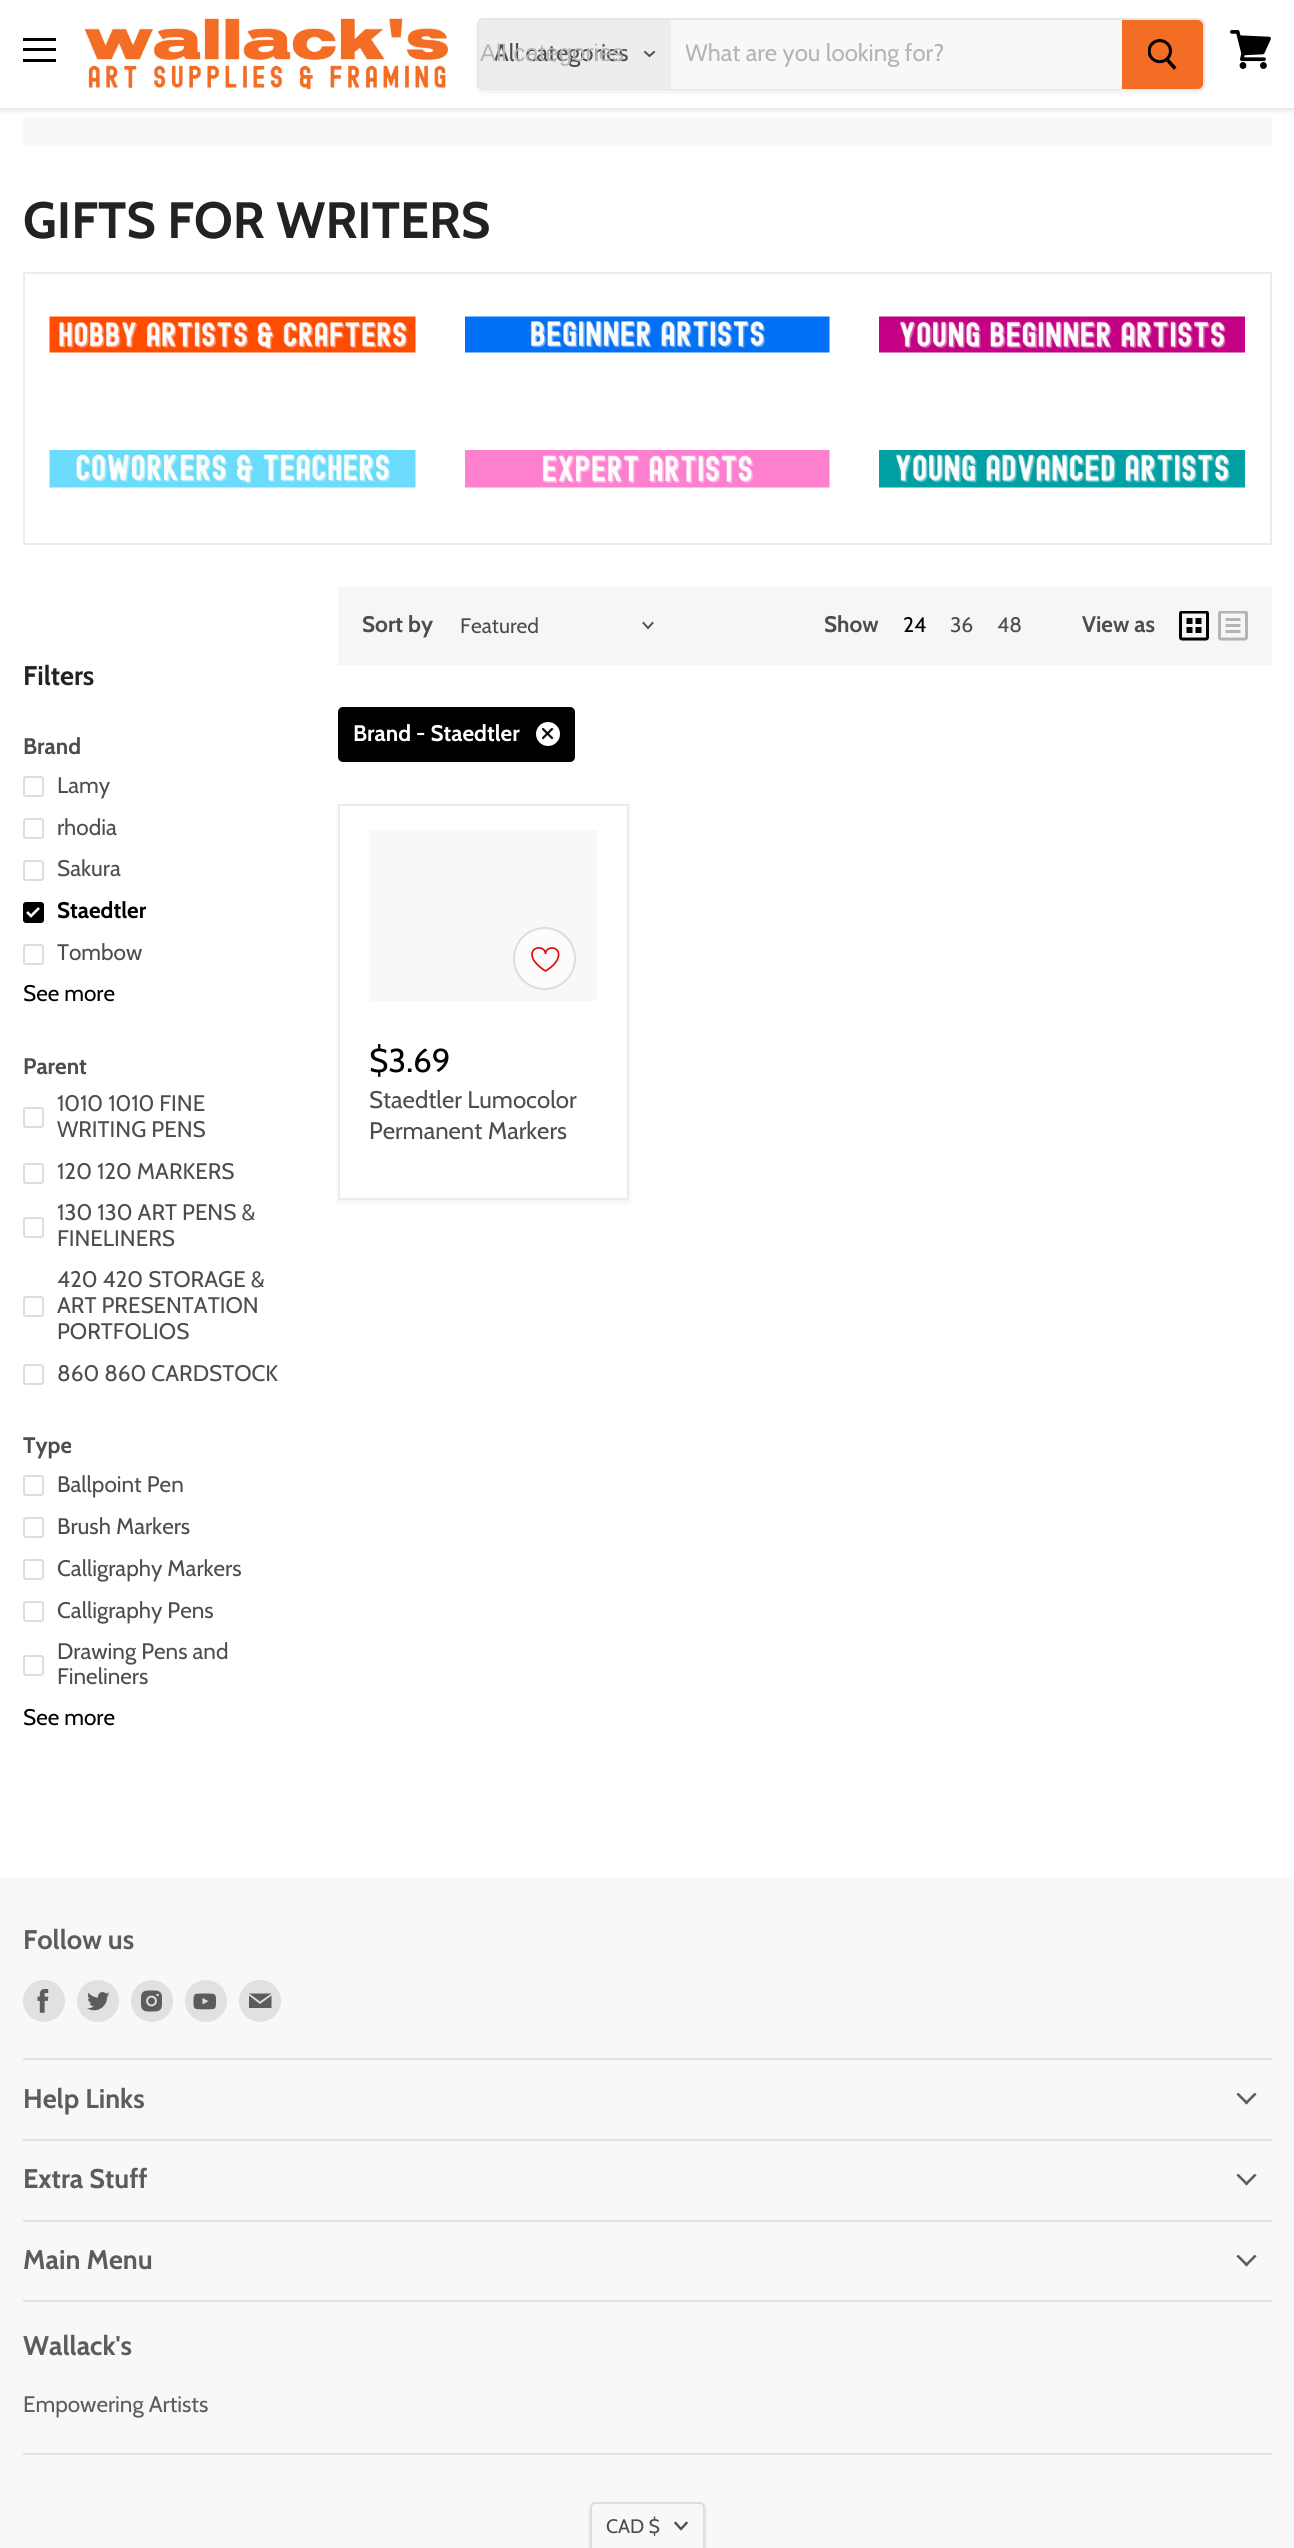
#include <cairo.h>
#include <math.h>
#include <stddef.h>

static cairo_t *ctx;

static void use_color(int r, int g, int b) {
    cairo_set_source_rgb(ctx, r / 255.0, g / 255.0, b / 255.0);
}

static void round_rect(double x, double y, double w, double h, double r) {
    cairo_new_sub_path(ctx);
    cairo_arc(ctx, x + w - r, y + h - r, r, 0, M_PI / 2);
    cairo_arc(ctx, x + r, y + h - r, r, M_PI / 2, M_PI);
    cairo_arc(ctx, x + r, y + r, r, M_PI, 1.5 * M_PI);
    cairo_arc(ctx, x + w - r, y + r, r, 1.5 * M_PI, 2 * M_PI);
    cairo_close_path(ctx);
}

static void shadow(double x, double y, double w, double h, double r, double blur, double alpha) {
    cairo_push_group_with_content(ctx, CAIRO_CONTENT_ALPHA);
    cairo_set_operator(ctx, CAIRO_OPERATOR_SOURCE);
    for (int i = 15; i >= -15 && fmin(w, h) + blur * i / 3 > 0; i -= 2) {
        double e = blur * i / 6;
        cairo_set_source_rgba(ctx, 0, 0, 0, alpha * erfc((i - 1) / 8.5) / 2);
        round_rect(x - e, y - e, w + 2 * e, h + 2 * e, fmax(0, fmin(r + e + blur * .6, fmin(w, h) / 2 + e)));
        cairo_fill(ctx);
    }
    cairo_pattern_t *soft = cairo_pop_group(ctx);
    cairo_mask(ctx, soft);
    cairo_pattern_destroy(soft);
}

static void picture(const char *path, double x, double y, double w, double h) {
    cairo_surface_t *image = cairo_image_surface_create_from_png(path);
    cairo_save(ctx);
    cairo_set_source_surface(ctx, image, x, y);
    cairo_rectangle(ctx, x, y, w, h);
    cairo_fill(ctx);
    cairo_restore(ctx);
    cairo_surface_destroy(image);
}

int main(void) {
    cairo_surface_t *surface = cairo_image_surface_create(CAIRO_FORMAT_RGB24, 1294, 2548);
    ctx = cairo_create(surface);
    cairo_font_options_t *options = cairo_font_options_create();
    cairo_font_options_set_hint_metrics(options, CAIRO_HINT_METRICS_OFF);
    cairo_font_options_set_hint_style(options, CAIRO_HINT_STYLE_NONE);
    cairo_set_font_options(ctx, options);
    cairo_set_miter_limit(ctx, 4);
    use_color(255, 255, 255);
    cairo_paint(ctx);
    use_color(248, 248, 248);
    cairo_rectangle(ctx, 23, 117, 1249, 29);
    cairo_fill(ctx);
    use_color(128, 128, 128);
    shadow(0, 2, 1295, 108, 0, 3, 0.25);
    use_color(255, 255, 255);
    cairo_rectangle(ctx, 0, 0, 1294, 108);
    cairo_fill(ctx);
    use_color(0, 0, 0);
    cairo_rectangle(ctx, 23, 38, 33, 3);
    cairo_fill(ctx);
    cairo_rectangle(ctx, 23, 48, 33, 3);
    cairo_fill(ctx);
    cairo_rectangle(ctx, 23, 59, 33, 3);
    cairo_fill(ctx);
    picture("img1.png", 84, 18, 365, 72);
    cairo_save(ctx);
    cairo_set_fill_rule(ctx, CAIRO_FILL_RULE_EVEN_ODD);
    cairo_new_path(ctx);
    cairo_move_to(ctx, 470, 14);
    cairo_line_to(ctx, 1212, 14);
    cairo_line_to(ctx, 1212, 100);
    cairo_line_to(ctx, 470, 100);
    cairo_close_path(ctx);
    cairo_move_to(ctx, 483, 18);
    cairo_line_to(ctx, 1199, 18);
    cairo_curve_to(ctx, 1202.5, 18, 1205, 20.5, 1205, 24);
    cairo_line_to(ctx, 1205, 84);
    cairo_curve_to(ctx, 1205, 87.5, 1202.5, 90, 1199, 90);
    cairo_line_to(ctx, 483, 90);
    cairo_curve_to(ctx, 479.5, 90, 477, 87.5, 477, 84);
    cairo_line_to(ctx, 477, 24);
    cairo_curve_to(ctx, 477, 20.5, 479.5, 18, 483, 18);
    cairo_close_path(ctx);
    cairo_clip(ctx);
    use_color(128, 128, 128);
    shadow(477, 21, 728, 72, 6, 2, 0.11);
    cairo_restore(ctx);
    round_rect(478, 19, 726, 70, 5);
    cairo_set_source_rgba(ctx, 0.502, 0.502, 0.502, 0.2);
    cairo_stroke(ctx);
    use_color(237, 237, 237);
    cairo_new_path(ctx);
    cairo_move_to(ctx, 484, 20);
    cairo_line_to(ctx, 671, 20);
    cairo_line_to(ctx, 671, 89);
    cairo_line_to(ctx, 484, 89);
    cairo_curve_to(ctx, 481, 89, 479, 87, 479, 84);
    cairo_line_to(ctx, 479, 25);
    cairo_curve_to(ctx, 479, 22, 481, 20, 484, 20);
    cairo_close_path(ctx);
    cairo_fill(ctx);
    cairo_select_font_face(ctx, "Cabin", CAIRO_FONT_SLANT_NORMAL, CAIRO_FONT_WEIGHT_NORMAL);
    cairo_set_font_size(ctx, 24);
    use_color(77, 77, 77);
    cairo_move_to(ctx, 494, 61);
    cairo_show_text(ctx, "All categories");
    cairo_select_font_face(ctx, "Liberation Sans", CAIRO_FONT_SLANT_NORMAL, CAIRO_FONT_WEIGHT_NORMAL);
    use_color(180, 180, 180);
    cairo_move_to(ctx, 480, 61);
    cairo_show_text(ctx, "All categories");
    cairo_new_path(ctx);
    cairo_move_to(ctx, 649.5, 56);
    cairo_line_to(ctx, 654, 52);
    cairo_move_to(ctx, 649.5, 56);
    cairo_line_to(ctx, 645, 52);
    use_color(77, 77, 77);
    cairo_set_line_width(ctx, 1.9);
    cairo_set_line_cap(ctx, CAIRO_LINE_CAP_SQUARE);
    cairo_stroke(ctx);
    use_color(248, 248, 248);
    cairo_rectangle(ctx, 671, 20, 451, 69);
    cairo_fill(ctx);
    cairo_save(ctx);
    cairo_rectangle(ctx, 686, 39, 421, 29);
    cairo_clip(ctx);
    cairo_select_font_face(ctx, "Cabin", CAIRO_FONT_SLANT_NORMAL, CAIRO_FONT_WEIGHT_NORMAL);
    use_color(180, 180, 180);
    cairo_move_to(ctx, 685, 61);
    cairo_show_text(ctx, "What are you looking for?");
    cairo_restore(ctx);
    use_color(244, 109, 37);
    cairo_new_path(ctx);
    cairo_move_to(ctx, 1123, 21);
    cairo_line_to(ctx, 1198, 21);
    cairo_curve_to(ctx, 1200, 21, 1202, 23, 1202, 25);
    cairo_line_to(ctx, 1202, 84);
    cairo_curve_to(ctx, 1202, 86, 1200, 88, 1198, 88);
    cairo_line_to(ctx, 1123, 88);
    cairo_close_path(ctx);
    cairo_fill_preserve(ctx);
    cairo_set_line_width(ctx, 2);
    cairo_set_line_cap(ctx, CAIRO_LINE_CAP_BUTT);
    cairo_stroke(ctx);
    picture("img2.png", 1148, 39, 29, 31);
    picture("img3.png", 1230, 30, 41, 39);
    cairo_select_font_face(ctx, "Cabin", CAIRO_FONT_SLANT_NORMAL, CAIRO_FONT_WEIGHT_BOLD);
    cairo_set_font_size(ctx, 51);
    use_color(34, 34, 34);
    cairo_move_to(ctx, 23, 238);
    cairo_show_text(ctx, "GIFTS FOR WRITERS");
    cairo_rectangle(ctx, 24, 273, 1247, 271);
    cairo_set_source_rgba(ctx, 0.502, 0.502, 0.502, 0.16);
    cairo_stroke(ctx);
    picture("img4.png", 49, 316, 367, 37);
    picture("img5.png", 465, 316, 365, 37);
    picture("img6.png", 879, 316, 366, 37);
    picture("img7.png", 49, 450, 367, 38);
    picture("img8.png", 465, 450, 365, 38);
    picture("img9.png", 879, 450, 366, 38);
    cairo_set_font_size(ctx, 27);
    use_color(34, 34, 34);
    cairo_move_to(ctx, 23, 685);
    cairo_show_text(ctx, "Filters");
    cairo_set_font_size(ctx, 22.5);
    use_color(77, 77, 77);
    cairo_move_to(ctx, 23, 754);
    cairo_show_text(ctx, "Brand");
    round_rect(24, 777, 19, 19, 2);
    use_color(221, 221, 221);
    cairo_stroke(ctx);
    cairo_select_font_face(ctx, "Cabin", CAIRO_FONT_SLANT_NORMAL, CAIRO_FONT_WEIGHT_NORMAL);
    use_color(77, 77, 77);
    cairo_move_to(ctx, 57, 793);
    cairo_show_text(ctx, "Lamy");
    round_rect(24, 819, 19, 19, 2);
    use_color(221, 221, 221);
    cairo_stroke(ctx);
    use_color(77, 77, 77);
    cairo_move_to(ctx, 57, 835);
    cairo_show_text(ctx, "rhodia");
    round_rect(24, 861, 19, 19, 2);
    use_color(221, 221, 221);
    cairo_stroke(ctx);
    use_color(77, 77, 77);
    cairo_move_to(ctx, 57, 876);
    cairo_show_text(ctx, "Sakura");
    use_color(0, 0, 0);
    round_rect(24, 903, 19, 19, 2);
    cairo_fill_preserve(ctx);
    cairo_stroke(ctx);
    cairo_new_path(ctx);
    cairo_move_to(ctx, 27, 912);
    cairo_line_to(ctx, 31, 916);
    cairo_line_to(ctx, 39, 908);
    use_color(255, 255, 255);
    cairo_set_line_width(ctx, 2.6);
    cairo_stroke(ctx);
    cairo_select_font_face(ctx, "Cabin", CAIRO_FONT_SLANT_NORMAL, CAIRO_FONT_WEIGHT_BOLD);
    use_color(0, 0, 0);
    cairo_move_to(ctx, 57, 918);
    cairo_show_text(ctx, "Staedtler");
    round_rect(24, 945, 19, 19, 2);
    use_color(221, 221, 221);
    cairo_set_line_width(ctx, 2);
    cairo_stroke(ctx);
    cairo_select_font_face(ctx, "Cabin", CAIRO_FONT_SLANT_NORMAL, CAIRO_FONT_WEIGHT_NORMAL);
    use_color(77, 77, 77);
    cairo_move_to(ctx, 57, 960);
    cairo_show_text(ctx, "Tombow");
    use_color(0, 0, 0);
    cairo_move_to(ctx, 23, 1001);
    cairo_show_text(ctx, "See more");
    cairo_select_font_face(ctx, "Cabin", CAIRO_FONT_SLANT_NORMAL, CAIRO_FONT_WEIGHT_BOLD);
    use_color(77, 77, 77);
    cairo_move_to(ctx, 23, 1074);
    cairo_show_text(ctx, "Parent");
    round_rect(24, 1108, 19, 19, 2);
    use_color(221, 221, 221);
    cairo_stroke(ctx);
    cairo_select_font_face(ctx, "Cabin", CAIRO_FONT_SLANT_NORMAL, CAIRO_FONT_WEIGHT_NORMAL);
    use_color(77, 77, 77);
    cairo_move_to(ctx, 57, 1111);
    cairo_show_text(ctx, "1010 1010 FINE");
    cairo_move_to(ctx, 57, 1137);
    cairo_show_text(ctx, "WRITING PENS");
    round_rect(24, 1164, 19, 19, 2);
    use_color(221, 221, 221);
    cairo_stroke(ctx);
    use_color(77, 77, 77);
    cairo_move_to(ctx, 57, 1179);
    cairo_show_text(ctx, "120 120 MARKERS");
    round_rect(24, 1218, 19, 19, 2);
    use_color(221, 221, 221);
    cairo_stroke(ctx);
    use_color(77, 77, 77);
    cairo_move_to(ctx, 57, 1220);
    cairo_show_text(ctx, "130 130 ART PENS &");
    cairo_move_to(ctx, 57, 1246);
    cairo_show_text(ctx, "FINELINERS");
    round_rect(24, 1297, 19, 19, 2);
    use_color(221, 221, 221);
    cairo_stroke(ctx);
    use_color(77, 77, 77);
    cairo_move_to(ctx, 57, 1287);
    cairo_show_text(ctx, "420 420 STORAGE &");
    cairo_move_to(ctx, 57, 1313);
    cairo_show_text(ctx, "ART PRESENTATION");
    cairo_move_to(ctx, 57, 1339);
    cairo_show_text(ctx, "PORTFOLIOS");
    round_rect(24, 1365, 19, 19, 2);
    use_color(221, 221, 221);
    cairo_stroke(ctx);
    use_color(77, 77, 77);
    cairo_move_to(ctx, 57, 1381);
    cairo_show_text(ctx, "860 860 CARDSTOCK");
    cairo_select_font_face(ctx, "Cabin", CAIRO_FONT_SLANT_NORMAL, CAIRO_FONT_WEIGHT_BOLD);
    cairo_move_to(ctx, 23, 1453);
    cairo_show_text(ctx, "Type");
    round_rect(24, 1476, 19, 19, 2);
    use_color(221, 221, 221);
    cairo_stroke(ctx);
    cairo_select_font_face(ctx, "Cabin", CAIRO_FONT_SLANT_NORMAL, CAIRO_FONT_WEIGHT_NORMAL);
    use_color(77, 77, 77);
    cairo_move_to(ctx, 57, 1492);
    cairo_show_text(ctx, "Ballpoint Pen");
    round_rect(24, 1518, 19, 19, 2);
    use_color(221, 221, 221);
    cairo_stroke(ctx);
    use_color(77, 77, 77);
    cairo_move_to(ctx, 57, 1534);
    cairo_show_text(ctx, "Brush Markers");
    round_rect(24, 1560, 19, 19, 2);
    use_color(221, 221, 221);
    cairo_stroke(ctx);
    use_color(77, 77, 77);
    cairo_move_to(ctx, 57, 1576);
    cairo_show_text(ctx, "Calligraphy Markers");
    round_rect(24, 1602, 19, 19, 2);
    use_color(221, 221, 221);
    cairo_stroke(ctx);
    use_color(77, 77, 77);
    cairo_move_to(ctx, 57, 1618);
    cairo_show_text(ctx, "Calligraphy Pens");
    round_rect(24, 1656, 19, 19, 2);
    use_color(221, 221, 221);
    cairo_stroke(ctx);
    use_color(77, 77, 77);
    cairo_move_to(ctx, 57, 1659);
    cairo_show_text(ctx, "Drawing Pens and");
    cairo_move_to(ctx, 57, 1684);
    cairo_show_text(ctx, "Fineliners");
    use_color(0, 0, 0);
    cairo_move_to(ctx, 23, 1725);
    cairo_show_text(ctx, "See more");
    use_color(246, 246, 246);
    cairo_rectangle(ctx, 338, 587, 934, 78);
    cairo_fill(ctx);
    cairo_select_font_face(ctx, "Cabin", CAIRO_FONT_SLANT_NORMAL, CAIRO_FONT_WEIGHT_BOLD);
    use_color(77, 77, 77);
    cairo_move_to(ctx, 362, 632);
    cairo_show_text(ctx, "Sort by");
    cairo_select_font_face(ctx, "Cabin", CAIRO_FONT_SLANT_NORMAL, CAIRO_FONT_WEIGHT_NORMAL);
    cairo_set_font_size(ctx, 21);
    cairo_move_to(ctx, 460, 633);
    cairo_show_text(ctx, "Featured");
    cairo_new_path(ctx);
    cairo_move_to(ctx, 648, 628);
    cairo_line_to(ctx, 652.5, 623);
    cairo_move_to(ctx, 648, 628);
    cairo_line_to(ctx, 643.5, 623);
    cairo_set_line_width(ctx, 1.9);
    cairo_set_line_cap(ctx, CAIRO_LINE_CAP_SQUARE);
    cairo_stroke(ctx);
    cairo_select_font_face(ctx, "Cabin", CAIRO_FONT_SLANT_NORMAL, CAIRO_FONT_WEIGHT_BOLD);
    cairo_set_font_size(ctx, 22.5);
    cairo_move_to(ctx, 824, 632);
    cairo_show_text(ctx, "Show");
    cairo_select_font_face(ctx, "Cabin", CAIRO_FONT_SLANT_NORMAL, CAIRO_FONT_WEIGHT_NORMAL);
    cairo_set_font_size(ctx, 21);
    use_color(0, 0, 0);
    cairo_move_to(ctx, 903, 632);
    cairo_show_text(ctx, "24");
    use_color(77, 77, 77);
    cairo_move_to(ctx, 950, 632);
    cairo_show_text(ctx, "36");
    cairo_move_to(ctx, 997, 632);
    cairo_show_text(ctx, "48");
    cairo_select_font_face(ctx, "Cabin", CAIRO_FONT_SLANT_NORMAL, CAIRO_FONT_WEIGHT_BOLD);
    cairo_set_font_size(ctx, 22.5);
    cairo_move_to(ctx, 1082, 632);
    cairo_show_text(ctx, "View as");
    picture("img10.png", 1179, 611, 30, 30);
    picture("img11.png", 1218, 611, 30, 30);
    use_color(0, 0, 0);
    round_rect(338, 707, 237, 55, 5);
    cairo_fill(ctx);
    use_color(255, 255, 255);
    cairo_move_to(ctx, 353, 741);
    cairo_show_text(ctx, "Brand - Staedtler");
    cairo_new_path(ctx);
    cairo_arc(ctx, 548, 734, 12, 0, 2 * M_PI);
    cairo_fill(ctx);
    picture("img12.png", 542, 728, 12, 12);
    use_color(128, 128, 128);
    shadow(338, 806, 291, 396, 0, 3, 0.11);
    use_color(255, 255, 255);
    cairo_rectangle(ctx, 339, 805, 289, 394);
    cairo_fill_preserve(ctx);
    use_color(235, 235, 235);
    cairo_set_line_width(ctx, 2);
    cairo_set_line_cap(ctx, CAIRO_LINE_CAP_BUTT);
    cairo_stroke(ctx);
    use_color(248, 248, 248);
    cairo_rectangle(ctx, 369, 830, 228, 171);
    cairo_fill(ctx);
    use_color(252, 252, 252);
    cairo_arc(ctx, 544.5, 958.5, 30.5, 0, 2 * M_PI);
    cairo_fill_preserve(ctx);
    use_color(221, 221, 221);
    cairo_stroke(ctx);
    cairo_new_path(ctx);
    cairo_move_to(ctx, 532, 954.5);
    cairo_curve_to(ctx, 532, 963, 545.5, 971, 545.5, 971);
    cairo_curve_to(ctx, 550.5, 968, 556, 963.5, 558, 958);
    cairo_curve_to(ctx, 562, 946, 545.5, 945, 545.5, 954);
    cairo_curve_to(ctx, 545.5, 946, 532, 945.5, 532, 954.5);
    cairo_close_path(ctx);
    use_color(215, 13, 13);
    cairo_set_line_width(ctx, 1.7);
    cairo_stroke(ctx);
    cairo_select_font_face(ctx, "Cabin", CAIRO_FONT_SLANT_NORMAL, CAIRO_FONT_WEIGHT_NORMAL);
    cairo_set_font_size(ctx, 33);
    use_color(0, 0, 0);
    cairo_move_to(ctx, 369, 1072);
    cairo_show_text(ctx, "$3.69");
    cairo_set_font_size(ctx, 24);
    use_color(77, 77, 77);
    cairo_move_to(ctx, 369, 1108);
    cairo_show_text(ctx, "Staedtler Lumocolor");
    cairo_move_to(ctx, 369, 1139);
    cairo_show_text(ctx, "Permanent Markers");
    use_color(248, 248, 248);
    cairo_rectangle(ctx, 0, 1877, 1294, 671);
    cairo_fill(ctx);
    use_color(225, 225, 225);
    cairo_rectangle(ctx, 23, 2058, 1249, 2);
    cairo_fill(ctx);
    cairo_select_font_face(ctx, "Cabin", CAIRO_FONT_SLANT_NORMAL, CAIRO_FONT_WEIGHT_BOLD);
    cairo_set_font_size(ctx, 27);
    use_color(92, 92, 92);
    cairo_move_to(ctx, 23, 1949);
    cairo_show_text(ctx, "Follow us");
    use_color(225, 225, 225);
    cairo_new_path(ctx);
    cairo_arc(ctx, 44, 2001, 21, 0, 2 * M_PI);
    cairo_fill(ctx);
    picture("img13.png", 37, 1989, 12, 24);
    cairo_arc(ctx, 98, 2001, 21, 0, 2 * M_PI);
    cairo_fill(ctx);
    picture("img14.png", 87, 1992, 23, 19);
    cairo_arc(ctx, 152, 2001, 21, 0, 2 * M_PI);
    cairo_fill(ctx);
    picture("img15.png", 141, 1990, 21, 22);
    cairo_arc(ctx, 206, 2001, 21, 0, 2 * M_PI);
    cairo_fill(ctx);
    picture("img16.png", 193, 1993, 23, 17);
    cairo_arc(ctx, 260, 2001, 21, 0, 2 * M_PI);
    cairo_fill(ctx);
    use_color(92, 92, 92);
    cairo_set_fill_rule(ctx, CAIRO_FILL_RULE_EVEN_ODD);
    cairo_new_path(ctx);
    cairo_move_to(ctx, 271.5, 1993.5);
    cairo_line_to(ctx, 249, 1993.5);
    cairo_line_to(ctx, 260, 2001.5);
    cairo_close_path(ctx);
    cairo_move_to(ctx, 260, 2004);
    cairo_line_to(ctx, 249, 1995.5);
    cairo_line_to(ctx, 249, 2008);
    cairo_line_to(ctx, 271.5, 2008);
    cairo_line_to(ctx, 271.5, 1995.5);
    cairo_close_path(ctx);
    cairo_fill(ctx);
    use_color(225, 225, 225);
    cairo_rectangle(ctx, 23, 2139, 1249, 2);
    cairo_fill(ctx);
    use_color(92, 92, 92);
    cairo_move_to(ctx, 23, 2108);
    cairo_show_text(ctx, "Help Links");
    picture("img17.png", 1236, 2093, 21, 12);
    use_color(225, 225, 225);
    cairo_rectangle(ctx, 23, 2220, 1249, 2);
    cairo_fill(ctx);
    use_color(92, 92, 92);
    cairo_move_to(ctx, 23, 2188);
    cairo_show_text(ctx, "Extra Stuff");
    picture("img17.png", 1236, 2174, 21, 12);
    use_color(225, 225, 225);
    cairo_rectangle(ctx, 23, 2300, 1249, 2);
    cairo_fill(ctx);
    use_color(92, 92, 92);
    cairo_move_to(ctx, 23, 2269);
    cairo_show_text(ctx, "Main Menu");
    picture("img17.png", 1236, 2255, 21, 12);
    use_color(225, 225, 225);
    cairo_rectangle(ctx, 23, 2453, 1249, 2);
    cairo_fill(ctx);
    use_color(92, 92, 92);
    cairo_move_to(ctx, 23, 2355);
    cairo_show_text(ctx, "Wallack's");
    cairo_select_font_face(ctx, "Cabin", CAIRO_FONT_SLANT_NORMAL, CAIRO_FONT_WEIGHT_NORMAL);
    cairo_set_font_size(ctx, 22.5);
    cairo_move_to(ctx, 23, 2412);
    cairo_show_text(ctx, "Empowering Artists");
    cairo_save(ctx);
    cairo_new_path(ctx);
    cairo_move_to(ctx, 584, 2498);
    cairo_line_to(ctx, 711, 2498);
    cairo_line_to(ctx, 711, 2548);
    cairo_line_to(ctx, 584, 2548);
    cairo_close_path(ctx);
    cairo_move_to(ctx, 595, 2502);
    cairo_line_to(ctx, 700, 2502);
    cairo_curve_to(ctx, 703, 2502, 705, 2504, 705, 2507);
    cairo_line_to(ctx, 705, 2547);
    cairo_curve_to(ctx, 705, 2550, 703, 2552, 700, 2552);
    cairo_line_to(ctx, 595, 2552);
    cairo_curve_to(ctx, 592, 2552, 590, 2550, 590, 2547);
    cairo_line_to(ctx, 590, 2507);
    cairo_curve_to(ctx, 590, 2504, 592, 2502, 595, 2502);
    cairo_close_path(ctx);
    cairo_clip(ctx);
    use_color(0, 0, 0);
    shadow(590, 2504, 115, 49, 5, 1.5, 0.15);
    cairo_restore(ctx);
    round_rect(591, 2503, 113, 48, 4);
    use_color(221, 221, 221);
    cairo_set_line_width(ctx, 2);
    cairo_stroke(ctx);
    cairo_set_font_size(ctx, 19.5);
    use_color(77, 77, 77);
    cairo_move_to(ctx, 606, 2533);
    cairo_show_text(ctx, "CAD $");
    cairo_new_path(ctx);
    cairo_move_to(ctx, 681, 2529);
    cairo_line_to(ctx, 686.5, 2523);
    cairo_move_to(ctx, 681, 2529);
    cairo_line_to(ctx, 675.5, 2523);
    cairo_set_line_width(ctx, 2.3);
    cairo_set_line_cap(ctx, CAIRO_LINE_CAP_SQUARE);
    cairo_stroke(ctx);
    cairo_surface_write_to_png(surface, "result.png");
    cairo_font_options_destroy(options);
    cairo_destroy(ctx);
    cairo_surface_destroy(surface);
    return 0;
}
